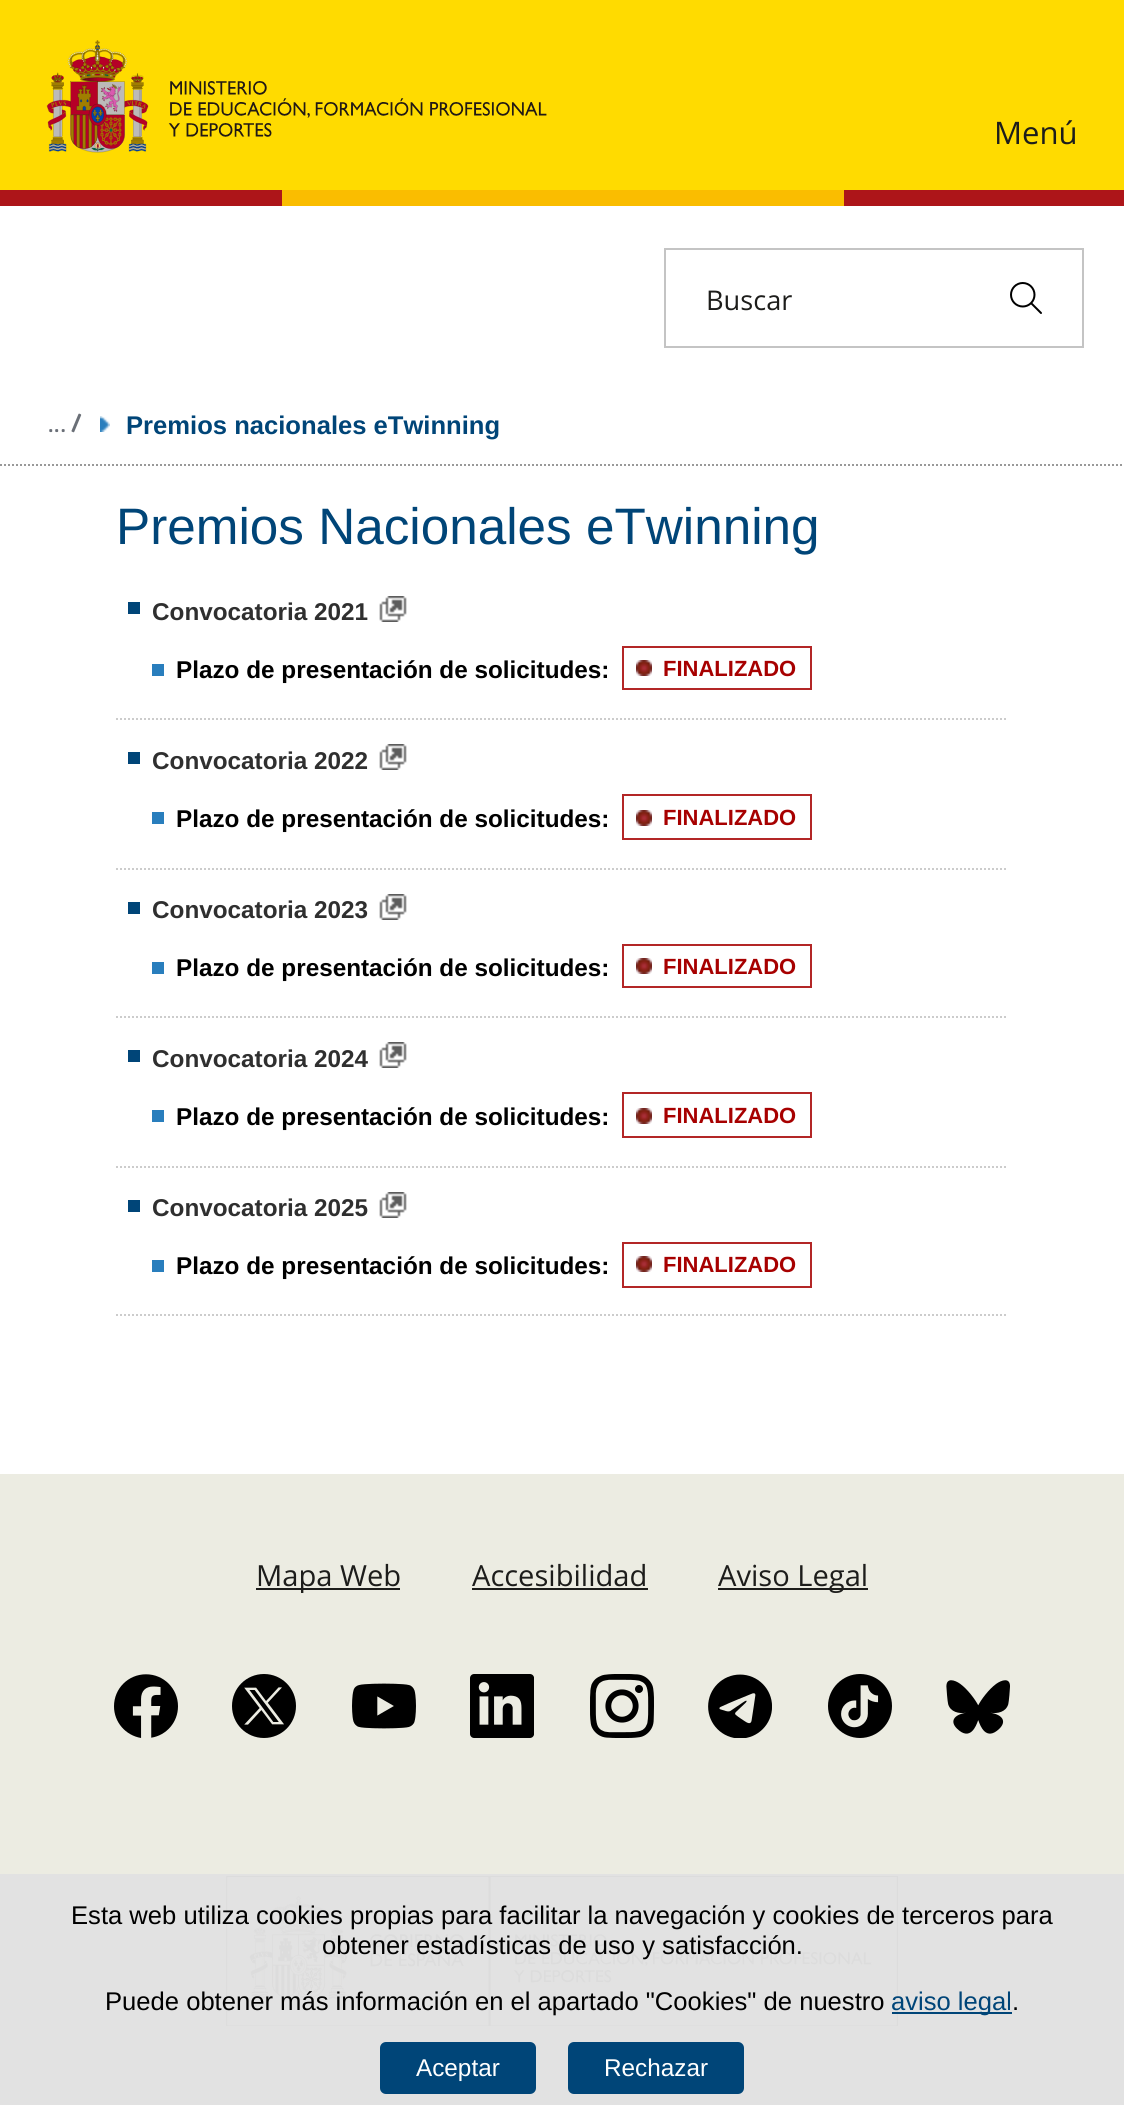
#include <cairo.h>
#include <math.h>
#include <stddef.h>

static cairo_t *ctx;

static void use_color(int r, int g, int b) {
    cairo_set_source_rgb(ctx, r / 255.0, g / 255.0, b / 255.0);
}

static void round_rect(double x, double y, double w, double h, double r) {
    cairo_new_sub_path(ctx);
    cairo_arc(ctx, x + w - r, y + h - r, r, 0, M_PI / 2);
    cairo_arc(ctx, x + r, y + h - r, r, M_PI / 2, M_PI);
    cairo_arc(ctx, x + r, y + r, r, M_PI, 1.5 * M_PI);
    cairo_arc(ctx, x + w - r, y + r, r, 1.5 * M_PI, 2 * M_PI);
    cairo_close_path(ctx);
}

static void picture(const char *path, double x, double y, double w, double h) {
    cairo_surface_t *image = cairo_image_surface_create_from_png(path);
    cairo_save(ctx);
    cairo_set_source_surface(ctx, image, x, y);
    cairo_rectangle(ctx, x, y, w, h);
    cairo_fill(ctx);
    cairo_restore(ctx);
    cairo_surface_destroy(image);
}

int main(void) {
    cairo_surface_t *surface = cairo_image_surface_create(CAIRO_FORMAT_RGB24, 1124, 2105);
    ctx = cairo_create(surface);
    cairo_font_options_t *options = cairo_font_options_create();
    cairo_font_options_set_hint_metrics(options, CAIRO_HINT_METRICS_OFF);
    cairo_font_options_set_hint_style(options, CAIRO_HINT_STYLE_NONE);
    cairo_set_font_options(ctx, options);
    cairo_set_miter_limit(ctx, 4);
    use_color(255, 255, 255);
    cairo_paint(ctx);
    use_color(255, 219, 0);
    cairo_rectangle(ctx, 0, 0, 1124, 190);
    cairo_fill(ctx);
    picture("img1.png", 46, 40, 501, 113);
    cairo_select_font_face(ctx, "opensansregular", CAIRO_FONT_SLANT_NORMAL, CAIRO_FONT_WEIGHT_NORMAL);
    cairo_set_font_size(ctx, 32);
    use_color(29, 29, 27);
    cairo_move_to(ctx, 994, 144);
    cairo_show_text(ctx, "Menú");
    cairo_rectangle(ctx, 665, 249, 418, 98);
    use_color(196, 196, 196);
    cairo_stroke(ctx);
    cairo_set_font_size(ctx, 28);
    use_color(29, 29, 27);
    cairo_move_to(ctx, 706, 310);
    cairo_show_text(ctx, "Buscar");
    picture("img2.png", 1010, 282, 32, 32);
    use_color(173, 21, 25);
    cairo_rectangle(ctx, 0, 190, 282, 16);
    cairo_fill(ctx);
    use_color(250, 189, 0);
    cairo_rectangle(ctx, 282, 190, 562, 16);
    cairo_fill(ctx);
    use_color(173, 21, 25);
    cairo_rectangle(ctx, 844, 190, 280, 16);
    cairo_fill(ctx);
    cairo_new_path(ctx);
    cairo_move_to(ctx, 0, 465);
    cairo_line_to(ctx, 1124, 465);
    use_color(153, 153, 153);
    cairo_set_dash(ctx, (double[]){2, 2}, 2, 0);
    cairo_stroke(ctx);
    picture("img3.png", 49, 413, 33, 20);
    picture("img4.png", 100, 416, 10, 16);
    cairo_select_font_face(ctx, "Liberation Sans", CAIRO_FONT_SLANT_NORMAL, CAIRO_FONT_WEIGHT_BOLD);
    cairo_set_font_size(ctx, 25.6);
    use_color(0, 69, 120);
    cairo_move_to(ctx, 126, 434);
    cairo_show_text(ctx, "Premios nacionales eTwinning");
    cairo_select_font_face(ctx, "Liberation Sans", CAIRO_FONT_SLANT_NORMAL, CAIRO_FONT_WEIGHT_NORMAL);
    cairo_set_font_size(ctx, 51.25);
    cairo_move_to(ctx, 116, 544);
    cairo_show_text(ctx, "Premios Nacionales eTwinning");
    cairo_rectangle(ctx, 128, 602, 12, 12);
    cairo_fill(ctx);
    cairo_new_path(ctx);
    cairo_move_to(ctx, 116, 719);
    cairo_line_to(ctx, 1008, 719);
    use_color(204, 204, 204);
    cairo_stroke(ctx);
    picture("img5.png", 379, 596, 28, 26);
    cairo_select_font_face(ctx, "Liberation Sans", CAIRO_FONT_SLANT_NORMAL, CAIRO_FONT_WEIGHT_BOLD);
    cairo_set_font_size(ctx, 24.3);
    use_color(47, 47, 47);
    cairo_move_to(ctx, 152, 620);
    cairo_show_text(ctx, "Convocatoria 2021");
    use_color(0, 0, 0);
    cairo_move_to(ctx, 176, 678);
    cairo_show_text(ctx, "Plazo de presentación de solicitudes:");
    use_color(41, 126, 189);
    cairo_rectangle(ctx, 152, 664, 12, 12);
    cairo_fill(ctx);
    picture("img6.png", 636, 660, 16, 16);
    cairo_rectangle(ctx, 623, 647, 188, 42);
    use_color(179, 38, 38);
    cairo_set_dash(ctx, NULL, 0, 0);
    cairo_stroke(ctx);
    cairo_set_font_size(ctx, 22);
    use_color(167, 0, 0);
    cairo_move_to(ctx, 663, 676);
    cairo_show_text(ctx, "FINALIZADO");
    use_color(0, 69, 120);
    cairo_rectangle(ctx, 128, 752, 12, 12);
    cairo_fill(ctx);
    cairo_new_path(ctx);
    cairo_move_to(ctx, 116, 869);
    cairo_line_to(ctx, 1008, 869);
    use_color(204, 204, 204);
    cairo_set_dash(ctx, (double[]){2, 2}, 2, 0);
    cairo_stroke(ctx);
    picture("img5.png", 379, 744, 28, 26);
    cairo_set_font_size(ctx, 24.3);
    use_color(47, 47, 47);
    cairo_move_to(ctx, 152, 769);
    cairo_show_text(ctx, "Convocatoria 2022");
    use_color(0, 0, 0);
    cairo_move_to(ctx, 176, 827);
    cairo_show_text(ctx, "Plazo de presentación de solicitudes:");
    use_color(41, 126, 189);
    cairo_rectangle(ctx, 152, 812, 12, 12);
    cairo_fill(ctx);
    picture("img6.png", 636, 810, 16, 16);
    cairo_rectangle(ctx, 623, 795, 188, 44);
    use_color(179, 38, 38);
    cairo_set_dash(ctx, NULL, 0, 0);
    cairo_stroke(ctx);
    cairo_set_font_size(ctx, 22);
    use_color(167, 0, 0);
    cairo_move_to(ctx, 663, 825);
    cairo_show_text(ctx, "FINALIZADO");
    use_color(0, 69, 120);
    cairo_rectangle(ctx, 128, 902, 12, 12);
    cairo_fill(ctx);
    cairo_new_path(ctx);
    cairo_move_to(ctx, 116, 1017);
    cairo_line_to(ctx, 1008, 1017);
    use_color(204, 204, 204);
    cairo_set_dash(ctx, (double[]){2, 2}, 2, 0);
    cairo_stroke(ctx);
    picture("img5.png", 379, 894, 28, 26);
    cairo_set_font_size(ctx, 24.3);
    use_color(47, 47, 47);
    cairo_move_to(ctx, 152, 918);
    cairo_show_text(ctx, "Convocatoria 2023");
    use_color(0, 0, 0);
    cairo_move_to(ctx, 176, 976);
    cairo_show_text(ctx, "Plazo de presentación de solicitudes:");
    use_color(41, 126, 189);
    cairo_rectangle(ctx, 152, 962, 12, 12);
    cairo_fill(ctx);
    picture("img6.png", 636, 958, 16, 16);
    cairo_rectangle(ctx, 623, 945, 188, 42);
    use_color(179, 38, 38);
    cairo_set_dash(ctx, NULL, 0, 0);
    cairo_stroke(ctx);
    cairo_set_font_size(ctx, 22);
    use_color(167, 0, 0);
    cairo_move_to(ctx, 663, 974);
    cairo_show_text(ctx, "FINALIZADO");
    use_color(0, 69, 120);
    cairo_rectangle(ctx, 128, 1050, 12, 12);
    cairo_fill(ctx);
    cairo_new_path(ctx);
    cairo_move_to(ctx, 116, 1167);
    cairo_line_to(ctx, 1008, 1167);
    use_color(204, 204, 204);
    cairo_set_dash(ctx, (double[]){2, 2}, 2, 0);
    cairo_stroke(ctx);
    picture("img5.png", 379, 1042, 28, 26);
    cairo_set_font_size(ctx, 24.3);
    use_color(47, 47, 47);
    cairo_move_to(ctx, 152, 1067);
    cairo_show_text(ctx, "Convocatoria 2024");
    use_color(0, 0, 0);
    cairo_move_to(ctx, 176, 1125);
    cairo_show_text(ctx, "Plazo de presentación de solicitudes:");
    use_color(41, 126, 189);
    cairo_rectangle(ctx, 152, 1110, 12, 12);
    cairo_fill(ctx);
    picture("img6.png", 636, 1108, 16, 16);
    cairo_rectangle(ctx, 623, 1093, 188, 44);
    use_color(179, 38, 38);
    cairo_set_dash(ctx, NULL, 0, 0);
    cairo_stroke(ctx);
    cairo_set_font_size(ctx, 22);
    use_color(167, 0, 0);
    cairo_move_to(ctx, 663, 1123);
    cairo_show_text(ctx, "FINALIZADO");
    use_color(0, 69, 120);
    cairo_rectangle(ctx, 128, 1200, 12, 12);
    cairo_fill(ctx);
    cairo_new_path(ctx);
    cairo_move_to(ctx, 116, 1315);
    cairo_line_to(ctx, 1008, 1315);
    use_color(204, 204, 204);
    cairo_set_dash(ctx, (double[]){2, 2}, 2, 0);
    cairo_stroke(ctx);
    picture("img5.png", 379, 1192, 28, 26);
    cairo_set_font_size(ctx, 24.3);
    use_color(47, 47, 47);
    cairo_move_to(ctx, 152, 1216);
    cairo_show_text(ctx, "Convocatoria 2025");
    use_color(0, 0, 0);
    cairo_move_to(ctx, 176, 1274);
    cairo_show_text(ctx, "Plazo de presentación de solicitudes:");
    use_color(41, 126, 189);
    cairo_rectangle(ctx, 152, 1260, 12, 12);
    cairo_fill(ctx);
    picture("img6.png", 636, 1256, 16, 16);
    cairo_rectangle(ctx, 623, 1243, 188, 44);
    use_color(179, 38, 38);
    cairo_set_dash(ctx, NULL, 0, 0);
    cairo_stroke(ctx);
    cairo_set_font_size(ctx, 22);
    use_color(167, 0, 0);
    cairo_move_to(ctx, 663, 1272);
    cairo_show_text(ctx, "FINALIZADO");
    use_color(236, 236, 226);
    cairo_rectangle(ctx, 0, 1474, 1124, 400);
    cairo_fill(ctx);
    use_color(226, 226, 226);
    cairo_rectangle(ctx, 0, 1874, 1124, 231);
    cairo_fill(ctx);
    use_color(29, 29, 27);
    cairo_rectangle(ctx, 256, 1588, 144, 2);
    cairo_fill(ctx);
    cairo_select_font_face(ctx, "opensansregular", CAIRO_FONT_SLANT_NORMAL, CAIRO_FONT_WEIGHT_NORMAL);
    cairo_set_font_size(ctx, 30);
    cairo_move_to(ctx, 256, 1586);
    cairo_show_text(ctx, "Mapa Web");
    cairo_move_to(ctx, 472, 1586);
    cairo_show_text(ctx, "Accesibilidad");
    cairo_rectangle(ctx, 472, 1588, 176, 2);
    cairo_fill(ctx);
    cairo_rectangle(ctx, 718, 1588, 150, 2);
    cairo_fill(ctx);
    cairo_move_to(ctx, 718, 1586);
    cairo_show_text(ctx, "Aviso Legal");
    picture("img7.png", 114, 1674, 64, 64);
    picture("img8.png", 232, 1674, 64, 64);
    picture("img9.png", 352, 1683, 64, 46);
    picture("img10.png", 470, 1674, 64, 64);
    picture("img11.png", 590, 1674, 64, 64);
    picture("img12.png", 708, 1674, 64, 64);
    picture("img13.png", 828, 1674, 64, 64);
    picture("img14.png", 946, 1680, 64, 54);
    picture("img15.png", 226, 1876, 672, 150);
    cairo_select_font_face(ctx, "Liberation Sans", CAIRO_FONT_SLANT_NORMAL, CAIRO_FONT_WEIGHT_NORMAL);
    cairo_set_font_size(ctx, 25.6);
    use_color(0, 0, 0);
    cairo_move_to(ctx, 71, 1924);
    cairo_show_text(ctx, "Esta web utiliza cookies propias para facilitar la navegación y cookies de terceros para");
    cairo_move_to(ctx, 322, 1954);
    cairo_show_text(ctx, "obtener estadísticas de uso y satisfacción.");
    cairo_move_to(ctx, 105, 2010);
    cairo_show_text(ctx, "Puede obtener más información en el apartado \"Cookies\" de nuestro");
    use_color(0, 69, 120);
    cairo_rectangle(ctx, 892, 2012, 120, 2);
    cairo_fill(ctx);
    cairo_move_to(ctx, 891, 2010);
    cairo_show_text(ctx, "aviso legal");
    use_color(0, 0, 0);
    cairo_move_to(ctx, 1012, 2010);
    cairo_show_text(ctx, ".");
    use_color(0, 69, 120);
    round_rect(380, 2042, 156, 52, 6);
    cairo_fill(ctx);
    cairo_set_font_size(ctx, 24.3);
    use_color(255, 255, 255);
    cairo_move_to(ctx, 416, 2076);
    cairo_show_text(ctx, "Aceptar");
    use_color(0, 69, 120);
    round_rect(568, 2042, 176, 52, 6);
    cairo_fill(ctx);
    use_color(255, 255, 255);
    cairo_move_to(ctx, 604, 2076);
    cairo_show_text(ctx, "Rechazar");
    cairo_surface_write_to_png(surface, "result.png");
    cairo_font_options_destroy(options);
    cairo_destroy(ctx);
    cairo_surface_destroy(surface);
    return 0;
}
